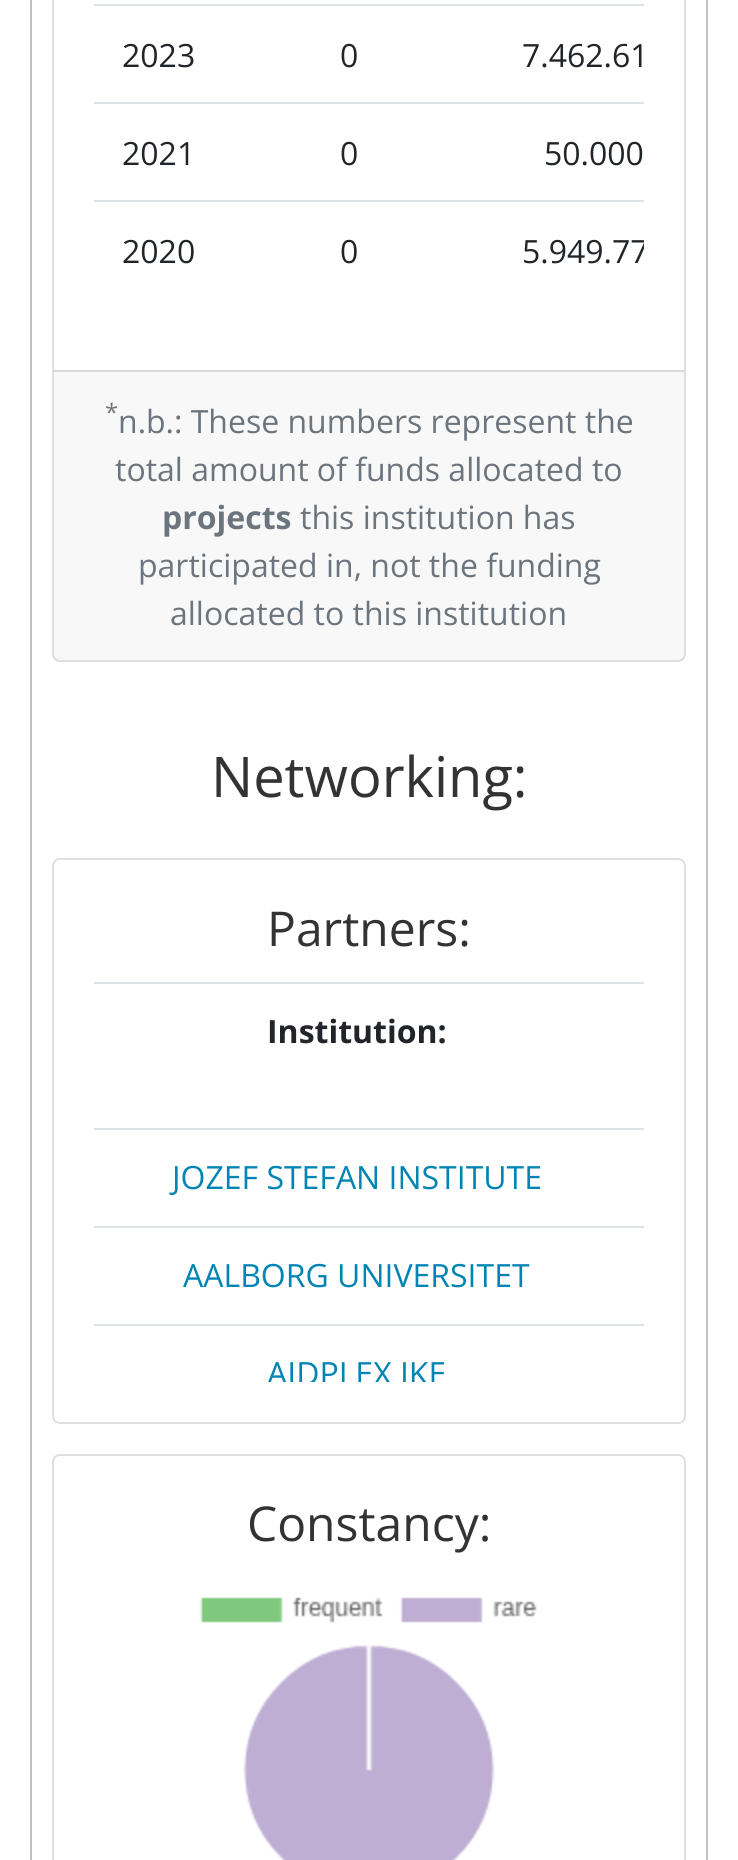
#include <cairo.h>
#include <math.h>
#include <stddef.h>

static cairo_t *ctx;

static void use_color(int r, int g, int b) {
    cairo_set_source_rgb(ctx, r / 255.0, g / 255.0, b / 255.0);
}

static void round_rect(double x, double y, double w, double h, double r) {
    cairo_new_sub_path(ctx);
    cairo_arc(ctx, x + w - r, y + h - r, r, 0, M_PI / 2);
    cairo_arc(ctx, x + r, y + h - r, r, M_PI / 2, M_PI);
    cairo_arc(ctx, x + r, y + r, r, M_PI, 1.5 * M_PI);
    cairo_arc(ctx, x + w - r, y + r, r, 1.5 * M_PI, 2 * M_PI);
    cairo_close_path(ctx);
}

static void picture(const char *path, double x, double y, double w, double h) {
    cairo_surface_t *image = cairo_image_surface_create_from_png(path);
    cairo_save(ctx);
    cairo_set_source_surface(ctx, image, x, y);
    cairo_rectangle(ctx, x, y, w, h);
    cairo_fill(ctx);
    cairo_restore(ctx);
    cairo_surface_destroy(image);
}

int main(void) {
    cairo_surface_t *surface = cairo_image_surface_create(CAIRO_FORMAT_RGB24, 738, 1860);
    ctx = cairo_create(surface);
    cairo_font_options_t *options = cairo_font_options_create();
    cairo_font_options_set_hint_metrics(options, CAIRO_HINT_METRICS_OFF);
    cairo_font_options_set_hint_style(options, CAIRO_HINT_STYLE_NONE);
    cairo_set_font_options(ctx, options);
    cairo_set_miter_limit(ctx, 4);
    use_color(255, 255, 255);
    cairo_paint(ctx);
    cairo_rectangle(ctx, 31, -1, 676, 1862);
    use_color(192, 192, 192);
    cairo_stroke(ctx);
    round_rect(53, -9, 632, 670, 7);
    use_color(223, 223, 223);
    cairo_stroke(ctx);
    cairo_select_font_face(ctx, "Open Sans", CAIRO_FONT_SLANT_NORMAL, CAIRO_FONT_WEIGHT_NORMAL);
    cairo_set_font_size(ctx, 32);
    use_color(33, 37, 41);
    cairo_move_to(ctx, 122, 67);
    cairo_show_text(ctx, "2023");
    cairo_move_to(ctx, 340, 67);
    cairo_show_text(ctx, "0");
    use_color(222, 226, 230);
    cairo_rectangle(ctx, 94, 4, 550, 2);
    cairo_fill(ctx);
    use_color(33, 37, 41);
    cairo_move_to(ctx, 522, 67);
    cairo_show_text(ctx, "7.462.61");
    cairo_move_to(ctx, 122, 165);
    cairo_show_text(ctx, "2021");
    cairo_move_to(ctx, 340, 165);
    cairo_show_text(ctx, "0");
    use_color(222, 226, 230);
    cairo_rectangle(ctx, 94, 102, 550, 2);
    cairo_fill(ctx);
    use_color(33, 37, 41);
    cairo_move_to(ctx, 544, 165);
    cairo_show_text(ctx, "50.000");
    cairo_move_to(ctx, 122, 263);
    cairo_show_text(ctx, "2020");
    cairo_move_to(ctx, 340, 263);
    cairo_show_text(ctx, "0");
    use_color(222, 226, 230);
    cairo_rectangle(ctx, 94, 200, 550, 2);
    cairo_fill(ctx);
    cairo_save(ctx);
    cairo_rectangle(ctx, 94, 0, 550, 330);
    cairo_clip(ctx);
    use_color(33, 37, 41);
    cairo_move_to(ctx, 522, 263);
    cairo_show_text(ctx, "5.949.77");
    cairo_restore(ctx);
    cairo_set_source_rgba(ctx, 0, 0, 0, 0.03);
    cairo_rectangle(ctx, 54, 372, 630, 288);
    cairo_fill(ctx);
    use_color(216, 216, 216);
    cairo_rectangle(ctx, 54, 370, 630, 2);
    cairo_fill(ctx);
    cairo_set_font_size(ctx, 24);
    use_color(108, 117, 125);
    cairo_move_to(ctx, 105, 421);
    cairo_show_text(ctx, "*");
    cairo_set_font_size(ctx, 32);
    cairo_move_to(ctx, 118, 433);
    cairo_show_text(ctx, "n.b.: These numbers represent the");
    cairo_move_to(ctx, 115, 481);
    cairo_show_text(ctx, "total amount of funds allocated to");
    cairo_select_font_face(ctx, "Open Sans", CAIRO_FONT_SLANT_NORMAL, CAIRO_FONT_WEIGHT_BOLD);
    cairo_move_to(ctx, 162, 529);
    cairo_show_text(ctx, "projects");
    cairo_select_font_face(ctx, "Open Sans", CAIRO_FONT_SLANT_NORMAL, CAIRO_FONT_WEIGHT_NORMAL);
    cairo_move_to(ctx, 300, 529);
    cairo_show_text(ctx, "this institution has");
    cairo_move_to(ctx, 138, 577);
    cairo_show_text(ctx, "participated in, not the funding");
    cairo_move_to(ctx, 170, 625);
    cairo_show_text(ctx, "allocated to this institution");
    cairo_set_font_size(ctx, 56);
    use_color(51, 51, 51);
    cairo_move_to(ctx, 211, 797);
    cairo_show_text(ctx, "Networking:");
    round_rect(53, 859, 632, 564, 7);
    use_color(223, 223, 223);
    cairo_stroke(ctx);
    cairo_set_font_size(ctx, 48);
    use_color(51, 51, 51);
    cairo_move_to(ctx, 267, 946);
    cairo_show_text(ctx, "Partners:");
    use_color(222, 226, 230);
    cairo_rectangle(ctx, 94, 982, 550, 2);
    cairo_fill(ctx);
    cairo_select_font_face(ctx, "Open Sans", CAIRO_FONT_SLANT_NORMAL, CAIRO_FONT_WEIGHT_BOLD);
    cairo_set_font_size(ctx, 32);
    use_color(33, 37, 41);
    cairo_move_to(ctx, 267, 1043);
    cairo_show_text(ctx, "Institution:");
    use_color(222, 226, 230);
    cairo_rectangle(ctx, 94, 1128, 550, 2);
    cairo_fill(ctx);
    cairo_select_font_face(ctx, "Open Sans", CAIRO_FONT_SLANT_NORMAL, CAIRO_FONT_WEIGHT_NORMAL);
    use_color(0, 132, 180);
    cairo_move_to(ctx, 172, 1189);
    cairo_show_text(ctx, "JOZEF STEFAN INSTITUTE");
    use_color(222, 226, 230);
    cairo_rectangle(ctx, 94, 1226, 550, 2);
    cairo_fill(ctx);
    use_color(0, 132, 180);
    cairo_move_to(ctx, 183, 1287);
    cairo_show_text(ctx, "AALBORG UNIVERSITET");
    use_color(222, 226, 230);
    cairo_rectangle(ctx, 94, 1324, 550, 2);
    cairo_fill(ctx);
    cairo_save(ctx);
    cairo_rectangle(ctx, 94, 982, 550, 400);
    cairo_clip(ctx);
    use_color(0, 132, 180);
    cairo_move_to(ctx, 267, 1385);
    cairo_show_text(ctx, "AIDPLEX IKE");
    cairo_restore(ctx);
    round_rect(53, 1455, 632, 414, 7);
    use_color(223, 223, 223);
    cairo_stroke(ctx);
    cairo_set_font_size(ctx, 48);
    use_color(51, 51, 51);
    cairo_move_to(ctx, 247, 1541);
    cairo_show_text(ctx, "Constancy:");
    picture("img1.png", 199, 1597, 338, 263);
    cairo_surface_write_to_png(surface, "result.png");
    cairo_font_options_destroy(options);
    cairo_destroy(ctx);
    cairo_surface_destroy(surface);
    return 0;
}
